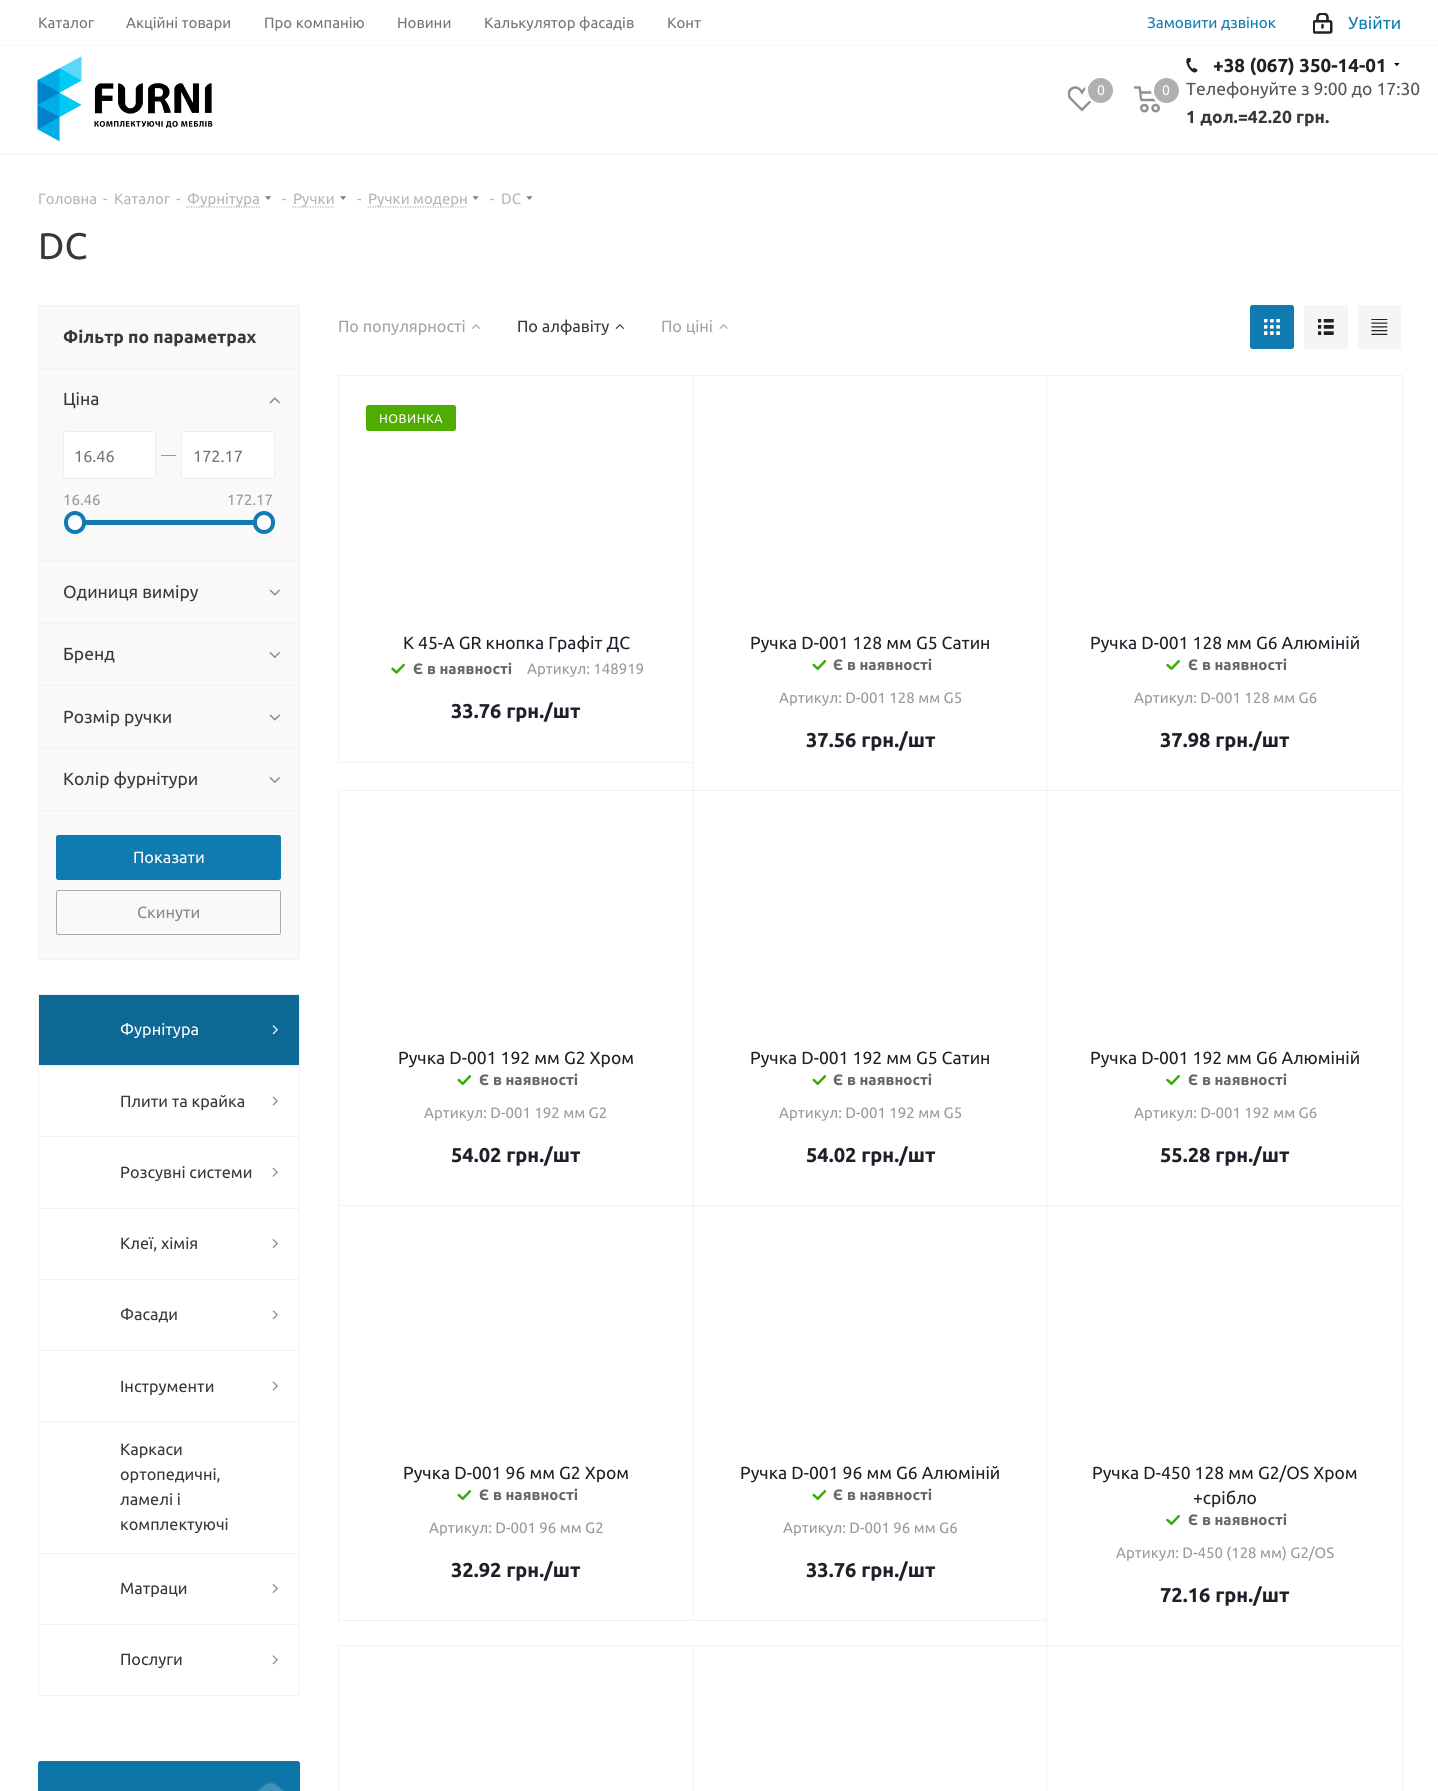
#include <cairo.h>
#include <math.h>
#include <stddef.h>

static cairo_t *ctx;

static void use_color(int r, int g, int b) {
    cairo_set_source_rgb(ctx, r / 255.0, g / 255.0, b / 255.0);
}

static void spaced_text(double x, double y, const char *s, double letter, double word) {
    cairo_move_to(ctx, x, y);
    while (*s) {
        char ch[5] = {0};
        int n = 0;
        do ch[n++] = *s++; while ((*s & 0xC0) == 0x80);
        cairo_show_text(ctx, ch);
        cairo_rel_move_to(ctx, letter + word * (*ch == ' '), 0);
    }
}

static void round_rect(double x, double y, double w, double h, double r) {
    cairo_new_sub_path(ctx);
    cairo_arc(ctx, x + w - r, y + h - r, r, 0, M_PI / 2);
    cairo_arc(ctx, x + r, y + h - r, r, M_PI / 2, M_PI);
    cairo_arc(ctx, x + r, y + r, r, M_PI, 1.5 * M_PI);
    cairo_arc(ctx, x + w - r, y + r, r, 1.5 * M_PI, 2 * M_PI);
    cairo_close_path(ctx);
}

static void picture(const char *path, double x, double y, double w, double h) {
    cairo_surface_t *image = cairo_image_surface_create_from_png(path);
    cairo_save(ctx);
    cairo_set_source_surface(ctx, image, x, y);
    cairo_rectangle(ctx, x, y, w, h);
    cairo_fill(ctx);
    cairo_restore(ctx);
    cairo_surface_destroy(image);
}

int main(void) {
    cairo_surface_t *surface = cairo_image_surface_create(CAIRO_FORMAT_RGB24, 1438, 1791);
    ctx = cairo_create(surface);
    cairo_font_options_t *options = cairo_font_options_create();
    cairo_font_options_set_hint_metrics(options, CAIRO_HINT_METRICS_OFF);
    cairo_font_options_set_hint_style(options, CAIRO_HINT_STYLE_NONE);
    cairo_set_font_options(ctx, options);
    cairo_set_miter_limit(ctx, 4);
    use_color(255, 255, 255);
    cairo_paint(ctx);
    use_color(246, 246, 246);
    cairo_rectangle(ctx, 0, 45, 1438, 1);
    cairo_fill(ctx);
    cairo_select_font_face(ctx, "Ubuntu", CAIRO_FONT_SLANT_NORMAL, CAIRO_FONT_WEIGHT_NORMAL);
    cairo_set_font_size(ctx, 15);
    use_color(117, 117, 117);
    cairo_move_to(ctx, 38, 28);
    cairo_show_text(ctx, "Каталог");
    cairo_move_to(ctx, 126, 28);
    cairo_show_text(ctx, "Акційні товари");
    cairo_move_to(ctx, 264, 28);
    cairo_show_text(ctx, "Про компанію");
    cairo_move_to(ctx, 397, 28);
    cairo_show_text(ctx, "Новини");
    cairo_move_to(ctx, 484, 28);
    cairo_show_text(ctx, "Калькулятор фасадів");
    cairo_move_to(ctx, 667, 28);
    cairo_show_text(ctx, "Конт");
    cairo_set_font_size(ctx, 15.25);
    use_color(16, 123, 177);
    cairo_move_to(ctx, 1147, 28);
    cairo_show_text(ctx, "Замовити дзвінок");
    picture("img1.png", 1313, 13, 20, 21);
    cairo_set_font_size(ctx, 17.5);
    cairo_move_to(ctx, 1348, 29);
    cairo_show_text(ctx, "Увійти");
    picture("img2.png", 37, 56, 176, 86);
    picture("img3.png", 1068, 86, 26, 26);
    cairo_arc(ctx, 1100, 90, 13.5, 0, 2 * M_PI);
    use_color(255, 255, 255);
    cairo_set_line_width(ctx, 3);
    cairo_stroke(ctx);
    use_color(176, 176, 176);
    cairo_arc(ctx, 1100.5, 90.5, 12.5, 0, 2 * M_PI);
    cairo_fill(ctx);
    cairo_set_font_size(ctx, 14);
    use_color(255, 255, 255);
    cairo_move_to(ctx, 1097, 95);
    cairo_show_text(ctx, "0");
    picture("img4.png", 1134, 86, 26, 27);
    cairo_arc(ctx, 1166, 90, 13.5, 0, 2 * M_PI);
    cairo_stroke(ctx);
    use_color(176, 176, 176);
    cairo_arc(ctx, 1166.5, 90.5, 12.5, 0, 2 * M_PI);
    cairo_fill(ctx);
    use_color(255, 255, 255);
    cairo_move_to(ctx, 1162, 95);
    cairo_show_text(ctx, "0");
    picture("img5.png", 1186, 58, 12, 15);
    cairo_select_font_face(ctx, "Ubuntu", CAIRO_FONT_SLANT_NORMAL, CAIRO_FONT_WEIGHT_BOLD);
    cairo_set_font_size(ctx, 18.75);
    use_color(34, 34, 34);
    cairo_move_to(ctx, 1213, 72);
    cairo_show_text(ctx, "+38 (067) 350-14-01");
    picture("img6.png", 1394, 63, 6, 3);
    cairo_select_font_face(ctx, "Ubuntu", CAIRO_FONT_SLANT_NORMAL, CAIRO_FONT_WEIGHT_NORMAL);
    cairo_set_font_size(ctx, 17.5);
    use_color(85, 85, 85);
    cairo_move_to(ctx, 1186, 95);
    cairo_show_text(ctx, "Телефонуйте з 9:00 до 17:30");
    cairo_select_font_face(ctx, "Ubuntu", CAIRO_FONT_SLANT_NORMAL, CAIRO_FONT_WEIGHT_BOLD);
    use_color(56, 56, 56);
    cairo_move_to(ctx, 1186, 123);
    cairo_show_text(ctx, "1 дол.=42.20 грн.");
    use_color(242, 242, 242);
    cairo_rectangle(ctx, 0, 154, 1438, 1);
    cairo_fill(ctx);
    cairo_select_font_face(ctx, "Ubuntu", CAIRO_FONT_SLANT_NORMAL, CAIRO_FONT_WEIGHT_NORMAL);
    cairo_set_font_size(ctx, 15);
    use_color(182, 181, 181);
    cairo_move_to(ctx, 38, 204);
    cairo_show_text(ctx, "Головна");
    cairo_move_to(ctx, 103, 204);
    cairo_show_text(ctx, "-");
    cairo_move_to(ctx, 114, 204);
    cairo_show_text(ctx, "Каталог");
    cairo_move_to(ctx, 176, 204);
    cairo_show_text(ctx, "-");
    cairo_new_path(ctx);
    cairo_move_to(ctx, 186, 207);
    cairo_line_to(ctx, 260, 207);
    use_color(180, 180, 180);
    cairo_set_line_width(ctx, 1.2);
    cairo_set_dash(ctx, (double[]){1.25, 1.25}, 2, 0);
    cairo_stroke(ctx);
    use_color(182, 181, 181);
    cairo_move_to(ctx, 187, 204);
    cairo_show_text(ctx, "Фурнітура");
    picture("img7.png", 265, 196, 6, 4);
    cairo_move_to(ctx, 282, 204);
    cairo_show_text(ctx, "-");
    cairo_new_path(ctx);
    cairo_move_to(ctx, 292.5, 207);
    cairo_line_to(ctx, 335, 207);
    use_color(180, 180, 180);
    cairo_stroke(ctx);
    use_color(182, 181, 181);
    cairo_move_to(ctx, 293, 204);
    cairo_show_text(ctx, "Ручки");
    picture("img7.png", 340, 196, 6, 4);
    cairo_move_to(ctx, 357, 204);
    cairo_show_text(ctx, "-");
    cairo_new_path(ctx);
    cairo_move_to(ctx, 367.5, 207);
    cairo_line_to(ctx, 467.5, 207);
    use_color(180, 180, 180);
    cairo_stroke(ctx);
    use_color(182, 181, 181);
    cairo_move_to(ctx, 368, 204);
    cairo_show_text(ctx, "Ручки модерн");
    picture("img8.png", 473, 196, 6, 4);
    cairo_move_to(ctx, 490, 204);
    cairo_show_text(ctx, "-");
    cairo_move_to(ctx, 501, 204);
    cairo_show_text(ctx, "DC");
    picture("img9.png", 526, 196, 7, 4);
    cairo_set_font_size(ctx, 37);
    use_color(56, 56, 56);
    cairo_move_to(ctx, 38, 259);
    cairo_show_text(ctx, "DC");
    use_color(249, 249, 249);
    round_rect(38.5, 305.5, 261, 654, 2);
    cairo_fill_preserve(ctx);
    use_color(242, 242, 242);
    cairo_set_line_width(ctx, 1);
    cairo_set_dash(ctx, NULL, 0, 0);
    cairo_stroke(ctx);
    cairo_rectangle(ctx, 39, 368, 260, 1);
    cairo_fill(ctx);
    cairo_select_font_face(ctx, "Ubuntu", CAIRO_FONT_SLANT_NORMAL, CAIRO_FONT_WEIGHT_BOLD);
    cairo_set_font_size(ctx, 17.5);
    use_color(56, 56, 56);
    cairo_move_to(ctx, 63, 343);
    cairo_show_text(ctx, "Фільтр по параметрах");
    use_color(242, 242, 242);
    cairo_rectangle(ctx, 39, 560, 260, 1);
    cairo_fill(ctx);
    cairo_select_font_face(ctx, "Ubuntu", CAIRO_FONT_SLANT_NORMAL, CAIRO_FONT_WEIGHT_NORMAL);
    use_color(56, 56, 56);
    cairo_move_to(ctx, 63, 405);
    cairo_show_text(ctx, "Ціна");
    picture("img10.png", 269, 397, 11, 7);
    use_color(255, 255, 255);
    round_rect(63.5, 431.5, 92, 47, 2);
    cairo_fill_preserve(ctx);
    use_color(238, 238, 238);
    cairo_stroke(ctx);
    cairo_set_font_size(ctx, 16.25);
    use_color(117, 117, 117);
    cairo_move_to(ctx, 74, 462);
    cairo_show_text(ctx, "16.46");
    use_color(154, 154, 154);
    cairo_rectangle(ctx, 161, 455, 15, 1);
    cairo_fill(ctx);
    use_color(255, 255, 255);
    round_rect(181.5, 431.5, 93, 47, 2);
    cairo_fill_preserve(ctx);
    use_color(238, 238, 238);
    cairo_stroke(ctx);
    use_color(117, 117, 117);
    cairo_move_to(ctx, 193, 462);
    cairo_show_text(ctx, "172.17");
    cairo_set_font_size(ctx, 15);
    use_color(153, 153, 153);
    cairo_move_to(ctx, 63, 505);
    cairo_show_text(ctx, "16.46");
    cairo_move_to(ctx, 227, 505);
    cairo_show_text(ctx, "172.17");
    use_color(16, 123, 177);
    cairo_rectangle(ctx, 85, 520, 169, 5);
    cairo_fill(ctx);
    use_color(255, 255, 255);
    round_rect(66, 513, 18, 19, 9);
    cairo_fill_preserve(ctx);
    use_color(16, 123, 177);
    cairo_set_line_width(ctx, 4);
    cairo_stroke(ctx);
    use_color(255, 255, 255);
    round_rect(255, 513, 18, 19, 9);
    cairo_fill_preserve(ctx);
    use_color(16, 123, 177);
    cairo_stroke(ctx);
    use_color(242, 242, 242);
    cairo_rectangle(ctx, 39, 623, 260, 1);
    cairo_fill(ctx);
    cairo_set_font_size(ctx, 17.5);
    use_color(56, 56, 56);
    cairo_move_to(ctx, 63, 598);
    cairo_show_text(ctx, "Одиниця виміру");
    picture("img11.png", 269, 589, 11, 7);
    use_color(242, 242, 242);
    cairo_rectangle(ctx, 39, 685, 260, 1);
    cairo_fill(ctx);
    use_color(56, 56, 56);
    cairo_move_to(ctx, 63, 660);
    cairo_show_text(ctx, "Бренд");
    picture("img12.png", 269, 652, 11, 6);
    use_color(242, 242, 242);
    cairo_rectangle(ctx, 39, 748, 260, 1);
    cairo_fill(ctx);
    use_color(56, 56, 56);
    cairo_move_to(ctx, 63, 723);
    cairo_show_text(ctx, "Розмір ручки");
    picture("img11.png", 269, 714, 11, 7);
    use_color(242, 242, 242);
    cairo_rectangle(ctx, 39, 810, 260, 1);
    cairo_fill(ctx);
    use_color(56, 56, 56);
    cairo_move_to(ctx, 63, 785);
    cairo_show_text(ctx, "Колір фурнітури");
    picture("img12.png", 269, 777, 11, 6);
    use_color(16, 123, 177);
    round_rect(56.5, 835.5, 224, 44, 2);
    cairo_fill_preserve(ctx);
    cairo_set_line_width(ctx, 1);
    cairo_stroke(ctx);
    cairo_set_font_size(ctx, 16.25);
    use_color(255, 255, 255);
    cairo_move_to(ctx, 133, 863);
    cairo_show_text(ctx, "Показати");
    round_rect(56.5, 890.5, 224, 44, 2);
    use_color(170, 170, 170);
    cairo_stroke(ctx);
    use_color(136, 136, 136);
    cairo_move_to(ctx, 137, 918);
    cairo_show_text(ctx, "Скинути");
    use_color(13, 104, 150);
    cairo_rectangle(ctx, 39, 995, 260, 70);
    cairo_fill(ctx);
    use_color(242, 242, 242);
    cairo_rectangle(ctx, 38, 994, 262, 1);
    cairo_fill(ctx);
    cairo_rectangle(ctx, 299, 994, 1, 71);
    cairo_fill(ctx);
    cairo_rectangle(ctx, 38, 994, 1, 71);
    cairo_fill(ctx);
    use_color(255, 255, 255);
    cairo_move_to(ctx, 120, 1035);
    cairo_show_text(ctx, "Фурнітура");
    picture("img13.png", 272, 1025, 6, 10);
    use_color(242, 242, 242);
    cairo_rectangle(ctx, 38, 1065, 262, 1);
    cairo_fill(ctx);
    cairo_rectangle(ctx, 299, 1065, 1, 71);
    cairo_fill(ctx);
    cairo_rectangle(ctx, 38, 1065, 1, 71);
    cairo_fill(ctx);
    use_color(56, 56, 56);
    cairo_move_to(ctx, 120, 1107);
    cairo_show_text(ctx, "Плити та крайка");
    picture("img14.png", 272, 1096, 6, 10);
    use_color(242, 242, 242);
    cairo_rectangle(ctx, 38, 1136, 262, 1);
    cairo_fill(ctx);
    cairo_rectangle(ctx, 299, 1136, 1, 72);
    cairo_fill(ctx);
    cairo_rectangle(ctx, 38, 1136, 1, 72);
    cairo_fill(ctx);
    use_color(56, 56, 56);
    cairo_move_to(ctx, 120, 1178);
    cairo_show_text(ctx, "Розсувні системи");
    picture("img15.png", 272, 1167, 6, 10);
    use_color(242, 242, 242);
    cairo_rectangle(ctx, 38, 1208, 262, 1);
    cairo_fill(ctx);
    cairo_rectangle(ctx, 299, 1208, 1, 71);
    cairo_fill(ctx);
    cairo_rectangle(ctx, 38, 1208, 1, 71);
    cairo_fill(ctx);
    use_color(56, 56, 56);
    cairo_move_to(ctx, 120, 1249);
    cairo_show_text(ctx, "Клеї, хімія");
    picture("img16.png", 272, 1239, 6, 9);
    use_color(242, 242, 242);
    cairo_rectangle(ctx, 38, 1279, 262, 1);
    cairo_fill(ctx);
    cairo_rectangle(ctx, 299, 1279, 1, 71);
    cairo_fill(ctx);
    cairo_rectangle(ctx, 38, 1279, 1, 71);
    cairo_fill(ctx);
    use_color(56, 56, 56);
    cairo_move_to(ctx, 120, 1320);
    cairo_show_text(ctx, "Фасади");
    picture("img17.png", 272, 1310, 6, 10);
    use_color(242, 242, 242);
    cairo_rectangle(ctx, 38, 1350, 262, 1);
    cairo_fill(ctx);
    cairo_rectangle(ctx, 299, 1350, 1, 71);
    cairo_fill(ctx);
    cairo_rectangle(ctx, 38, 1350, 1, 71);
    cairo_fill(ctx);
    use_color(56, 56, 56);
    cairo_move_to(ctx, 120, 1392);
    cairo_show_text(ctx, "Інструменти");
    picture("img14.png", 272, 1381, 6, 10);
    use_color(242, 242, 242);
    cairo_rectangle(ctx, 38, 1421, 262, 1);
    cairo_fill(ctx);
    cairo_rectangle(ctx, 299, 1421, 1, 132);
    cairo_fill(ctx);
    cairo_rectangle(ctx, 38, 1421, 1, 132);
    cairo_fill(ctx);
    use_color(56, 56, 56);
    cairo_move_to(ctx, 120, 1455);
    cairo_show_text(ctx, "Каркаси");
    cairo_move_to(ctx, 120, 1480);
    cairo_show_text(ctx, "ортопедичні,");
    cairo_move_to(ctx, 120, 1505);
    cairo_show_text(ctx, "ламелі і");
    cairo_move_to(ctx, 120, 1530);
    cairo_show_text(ctx, "комплектуючі");
    use_color(242, 242, 242);
    cairo_rectangle(ctx, 38, 1553, 262, 1);
    cairo_fill(ctx);
    cairo_rectangle(ctx, 299, 1553, 1, 71);
    cairo_fill(ctx);
    cairo_rectangle(ctx, 38, 1553, 1, 71);
    cairo_fill(ctx);
    use_color(56, 56, 56);
    cairo_move_to(ctx, 120, 1594);
    cairo_show_text(ctx, "Матраци");
    picture("img16.png", 272, 1584, 6, 9);
    cairo_rectangle(ctx, 38.5, 1624.5, 261, 71);
    use_color(242, 242, 242);
    cairo_stroke(ctx);
    use_color(56, 56, 56);
    cairo_move_to(ctx, 120, 1665);
    cairo_show_text(ctx, "Послуги");
    picture("img17.png", 272, 1655, 6, 10);
    use_color(14, 117, 169);
    round_rect(38, 1761, 262, 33, 2.5);
    cairo_fill(ctx);
    picture("img18.png", 257, 1782, 27, 9);
    use_color(165, 163, 163);
    cairo_move_to(ctx, 338, 332);
    cairo_show_text(ctx, "По популярності");
    picture("img19.png", 472, 324, 9, 5);
    use_color(56, 56, 56);
    cairo_move_to(ctx, 517, 332);
    cairo_show_text(ctx, "По алфавіту");
    picture("img20.png", 615, 324, 9, 5);
    use_color(165, 163, 163);
    cairo_move_to(ctx, 661, 332);
    cairo_show_text(ctx, "По ціні");
    picture("img21.png", 719, 324, 9, 5);
    use_color(16, 123, 177);
    round_rect(1250, 305, 44, 44, 2.5);
    cairo_fill(ctx);
    picture("img22.png", 1264, 319, 16, 16);
    use_color(245, 245, 245);
    round_rect(1304, 305, 44, 44, 2.5);
    cairo_fill(ctx);
    picture("img23.png", 1318, 319, 16, 16);
    round_rect(1358, 305, 43, 44, 2.5);
    cairo_fill(ctx);
    picture("img24.png", 1371, 319, 17, 16);
    cairo_rectangle(ctx, 338.5, 375.5, 355, 387);
    use_color(242, 242, 242);
    cairo_stroke(ctx);
    use_color(79, 173, 0);
    round_rect(366, 405, 90, 26, 2.5);
    cairo_fill(ctx);
    cairo_set_font_size(ctx, 12.5);
    use_color(255, 255, 255);
    spaced_text(379, 423, "НОВИНКА", 0.5, 0);
    cairo_set_font_size(ctx, 17.5);
    use_color(29, 32, 41);
    cairo_move_to(ctx, 403, 649);
    cairo_show_text(ctx, "K 45-A GR кнопка Графіт ДС");
    picture("img25.png", 391, 663, 14, 11);
    cairo_select_font_face(ctx, "Ubuntu", CAIRO_FONT_SLANT_NORMAL, CAIRO_FONT_WEIGHT_BOLD);
    cairo_set_font_size(ctx, 15);
    use_color(102, 102, 102);
    cairo_move_to(ctx, 413, 674);
    cairo_show_text(ctx, "Є в наявності");
    cairo_select_font_face(ctx, "Ubuntu", CAIRO_FONT_SLANT_NORMAL, CAIRO_FONT_WEIGHT_NORMAL);
    use_color(153, 153, 153);
    cairo_move_to(ctx, 527, 674);
    cairo_show_text(ctx, "Артикул: 148919");
    cairo_select_font_face(ctx, "Ubuntu", CAIRO_FONT_SLANT_NORMAL, CAIRO_FONT_WEIGHT_BOLD);
    cairo_set_font_size(ctx, 20);
    use_color(29, 32, 41);
    cairo_move_to(ctx, 451, 718);
    cairo_show_text(ctx, "33.76 грн./шт");
    cairo_rectangle(ctx, 693.5, 375.5, 354, 415);
    use_color(242, 242, 242);
    cairo_stroke(ctx);
    cairo_select_font_face(ctx, "Ubuntu", CAIRO_FONT_SLANT_NORMAL, CAIRO_FONT_WEIGHT_NORMAL);
    cairo_set_font_size(ctx, 17.5);
    use_color(29, 32, 41);
    cairo_move_to(ctx, 750, 649);
    cairo_show_text(ctx, "Ручка D-001 128 мм G5 Сатин");
    picture("img26.png", 812, 660, 14, 10);
    cairo_select_font_face(ctx, "Ubuntu", CAIRO_FONT_SLANT_NORMAL, CAIRO_FONT_WEIGHT_BOLD);
    cairo_set_font_size(ctx, 15);
    use_color(102, 102, 102);
    cairo_move_to(ctx, 833, 670);
    cairo_show_text(ctx, "Є в наявності");
    cairo_select_font_face(ctx, "Ubuntu", CAIRO_FONT_SLANT_NORMAL, CAIRO_FONT_WEIGHT_NORMAL);
    use_color(153, 153, 153);
    cairo_move_to(ctx, 779, 703);
    cairo_show_text(ctx, "Артикул: D-001 128 мм G5");
    cairo_select_font_face(ctx, "Ubuntu", CAIRO_FONT_SLANT_NORMAL, CAIRO_FONT_WEIGHT_BOLD);
    cairo_set_font_size(ctx, 20);
    use_color(29, 32, 41);
    cairo_move_to(ctx, 806, 747);
    cairo_show_text(ctx, "37.56 грн./шт");
    use_color(255, 255, 255);
    cairo_rectangle(ctx, 1047, 376, 1, 414);
    cairo_fill(ctx);
    cairo_rectangle(ctx, 1046.5, 375.5, 356, 415);
    use_color(242, 242, 242);
    cairo_stroke(ctx);
    cairo_select_font_face(ctx, "Ubuntu", CAIRO_FONT_SLANT_NORMAL, CAIRO_FONT_WEIGHT_NORMAL);
    cairo_set_font_size(ctx, 17.5);
    use_color(29, 32, 41);
    cairo_move_to(ctx, 1090, 649);
    cairo_show_text(ctx, "Ручка D-001 128 мм G6 Алюміній");
    picture("img27.png", 1166, 660, 14, 10);
    cairo_select_font_face(ctx, "Ubuntu", CAIRO_FONT_SLANT_NORMAL, CAIRO_FONT_WEIGHT_BOLD);
    cairo_set_font_size(ctx, 15);
    use_color(102, 102, 102);
    cairo_move_to(ctx, 1188, 670);
    cairo_show_text(ctx, "Є в наявності");
    cairo_select_font_face(ctx, "Ubuntu", CAIRO_FONT_SLANT_NORMAL, CAIRO_FONT_WEIGHT_NORMAL);
    use_color(153, 153, 153);
    cairo_move_to(ctx, 1134, 703);
    cairo_show_text(ctx, "Артикул: D-001 128 мм G6");
    cairo_select_font_face(ctx, "Ubuntu", CAIRO_FONT_SLANT_NORMAL, CAIRO_FONT_WEIGHT_BOLD);
    cairo_set_font_size(ctx, 20);
    use_color(29, 32, 41);
    cairo_move_to(ctx, 1160, 747);
    cairo_show_text(ctx, "37.98 грн./шт");
    cairo_rectangle(ctx, 338.5, 790.5, 355, 415);
    use_color(242, 242, 242);
    cairo_stroke(ctx);
    cairo_select_font_face(ctx, "Ubuntu", CAIRO_FONT_SLANT_NORMAL, CAIRO_FONT_WEIGHT_NORMAL);
    cairo_set_font_size(ctx, 17.5);
    use_color(29, 32, 41);
    cairo_move_to(ctx, 398, 1064);
    cairo_show_text(ctx, "Ручка D-001 192 мм G2 Хром");
    picture("img26.png", 457, 1075, 14, 10);
    cairo_select_font_face(ctx, "Ubuntu", CAIRO_FONT_SLANT_NORMAL, CAIRO_FONT_WEIGHT_BOLD);
    cairo_set_font_size(ctx, 15);
    use_color(102, 102, 102);
    cairo_move_to(ctx, 479, 1085);
    cairo_show_text(ctx, "Є в наявності");
    cairo_select_font_face(ctx, "Ubuntu", CAIRO_FONT_SLANT_NORMAL, CAIRO_FONT_WEIGHT_NORMAL);
    use_color(153, 153, 153);
    cairo_move_to(ctx, 424, 1118);
    cairo_show_text(ctx, "Артикул: D-001 192 мм G2");
    cairo_select_font_face(ctx, "Ubuntu", CAIRO_FONT_SLANT_NORMAL, CAIRO_FONT_WEIGHT_BOLD);
    cairo_set_font_size(ctx, 20);
    use_color(29, 32, 41);
    cairo_move_to(ctx, 451, 1162);
    cairo_show_text(ctx, "54.02 грн./шт");
    cairo_rectangle(ctx, 693.5, 790.5, 354, 415);
    use_color(242, 242, 242);
    cairo_stroke(ctx);
    cairo_select_font_face(ctx, "Ubuntu", CAIRO_FONT_SLANT_NORMAL, CAIRO_FONT_WEIGHT_NORMAL);
    cairo_set_font_size(ctx, 17.5);
    use_color(29, 32, 41);
    cairo_move_to(ctx, 750, 1064);
    cairo_show_text(ctx, "Ручка D-001 192 мм G5 Сатин");
    picture("img26.png", 812, 1075, 14, 10);
    cairo_select_font_face(ctx, "Ubuntu", CAIRO_FONT_SLANT_NORMAL, CAIRO_FONT_WEIGHT_BOLD);
    cairo_set_font_size(ctx, 15);
    use_color(102, 102, 102);
    cairo_move_to(ctx, 833, 1085);
    cairo_show_text(ctx, "Є в наявності");
    cairo_select_font_face(ctx, "Ubuntu", CAIRO_FONT_SLANT_NORMAL, CAIRO_FONT_WEIGHT_NORMAL);
    use_color(153, 153, 153);
    cairo_move_to(ctx, 779, 1118);
    cairo_show_text(ctx, "Артикул: D-001 192 мм G5");
    cairo_select_font_face(ctx, "Ubuntu", CAIRO_FONT_SLANT_NORMAL, CAIRO_FONT_WEIGHT_BOLD);
    cairo_set_font_size(ctx, 20);
    use_color(29, 32, 41);
    cairo_move_to(ctx, 806, 1162);
    cairo_show_text(ctx, "54.02 грн./шт");
    use_color(255, 255, 255);
    cairo_rectangle(ctx, 1047, 791, 1, 414);
    cairo_fill(ctx);
    cairo_rectangle(ctx, 1046.5, 790.5, 356, 415);
    use_color(242, 242, 242);
    cairo_stroke(ctx);
    cairo_select_font_face(ctx, "Ubuntu", CAIRO_FONT_SLANT_NORMAL, CAIRO_FONT_WEIGHT_NORMAL);
    cairo_set_font_size(ctx, 17.5);
    use_color(29, 32, 41);
    cairo_move_to(ctx, 1090, 1064);
    cairo_show_text(ctx, "Ручка D-001 192 мм G6 Алюміній");
    picture("img27.png", 1166, 1075, 14, 10);
    cairo_select_font_face(ctx, "Ubuntu", CAIRO_FONT_SLANT_NORMAL, CAIRO_FONT_WEIGHT_BOLD);
    cairo_set_font_size(ctx, 15);
    use_color(102, 102, 102);
    cairo_move_to(ctx, 1188, 1085);
    cairo_show_text(ctx, "Є в наявності");
    cairo_select_font_face(ctx, "Ubuntu", CAIRO_FONT_SLANT_NORMAL, CAIRO_FONT_WEIGHT_NORMAL);
    use_color(153, 153, 153);
    cairo_move_to(ctx, 1134, 1118);
    cairo_show_text(ctx, "Артикул: D-001 192 мм G6");
    cairo_select_font_face(ctx, "Ubuntu", CAIRO_FONT_SLANT_NORMAL, CAIRO_FONT_WEIGHT_BOLD);
    cairo_set_font_size(ctx, 20);
    use_color(29, 32, 41);
    cairo_move_to(ctx, 1160, 1162);
    cairo_show_text(ctx, "55.28 грн./шт");
    cairo_rectangle(ctx, 338.5, 1205.5, 355, 415);
    use_color(242, 242, 242);
    cairo_stroke(ctx);
    cairo_select_font_face(ctx, "Ubuntu", CAIRO_FONT_SLANT_NORMAL, CAIRO_FONT_WEIGHT_NORMAL);
    cairo_set_font_size(ctx, 17.5);
    use_color(29, 32, 41);
    cairo_move_to(ctx, 403, 1479);
    cairo_show_text(ctx, "Ручка D-001 96 мм G2 Хром");
    picture("img26.png", 457, 1490, 14, 10);
    cairo_select_font_face(ctx, "Ubuntu", CAIRO_FONT_SLANT_NORMAL, CAIRO_FONT_WEIGHT_BOLD);
    cairo_set_font_size(ctx, 15);
    use_color(102, 102, 102);
    cairo_move_to(ctx, 479, 1500);
    cairo_show_text(ctx, "Є в наявності");
    cairo_select_font_face(ctx, "Ubuntu", CAIRO_FONT_SLANT_NORMAL, CAIRO_FONT_WEIGHT_NORMAL);
    use_color(153, 153, 153);
    cairo_move_to(ctx, 429, 1533);
    cairo_show_text(ctx, "Артикул: D-001 96 мм G2");
    cairo_select_font_face(ctx, "Ubuntu", CAIRO_FONT_SLANT_NORMAL, CAIRO_FONT_WEIGHT_BOLD);
    cairo_set_font_size(ctx, 20);
    use_color(29, 32, 41);
    cairo_move_to(ctx, 451, 1577);
    cairo_show_text(ctx, "32.92 грн./шт");
    cairo_rectangle(ctx, 693.5, 1205.5, 354, 415);
    use_color(242, 242, 242);
    cairo_stroke(ctx);
    cairo_select_font_face(ctx, "Ubuntu", CAIRO_FONT_SLANT_NORMAL, CAIRO_FONT_WEIGHT_NORMAL);
    cairo_set_font_size(ctx, 17.5);
    use_color(29, 32, 41);
    cairo_move_to(ctx, 740, 1479);
    cairo_show_text(ctx, "Ручка D-001 96 мм G6 Алюміній");
    picture("img26.png", 812, 1490, 14, 10);
    cairo_select_font_face(ctx, "Ubuntu", CAIRO_FONT_SLANT_NORMAL, CAIRO_FONT_WEIGHT_BOLD);
    cairo_set_font_size(ctx, 15);
    use_color(102, 102, 102);
    cairo_move_to(ctx, 833, 1500);
    cairo_show_text(ctx, "Є в наявності");
    cairo_select_font_face(ctx, "Ubuntu", CAIRO_FONT_SLANT_NORMAL, CAIRO_FONT_WEIGHT_NORMAL);
    use_color(153, 153, 153);
    cairo_move_to(ctx, 783, 1533);
    cairo_show_text(ctx, "Артикул: D-001 96 мм G6");
    cairo_select_font_face(ctx, "Ubuntu", CAIRO_FONT_SLANT_NORMAL, CAIRO_FONT_WEIGHT_BOLD);
    cairo_set_font_size(ctx, 20);
    use_color(29, 32, 41);
    cairo_move_to(ctx, 806, 1577);
    cairo_show_text(ctx, "33.76 грн./шт");
    use_color(255, 255, 255);
    cairo_rectangle(ctx, 1047, 1206, 1, 415);
    cairo_fill(ctx);
    cairo_rectangle(ctx, 1046.5, 1205.5, 356, 440);
    use_color(242, 242, 242);
    cairo_stroke(ctx);
    cairo_select_font_face(ctx, "Ubuntu", CAIRO_FONT_SLANT_NORMAL, CAIRO_FONT_WEIGHT_NORMAL);
    cairo_set_font_size(ctx, 17.5);
    use_color(29, 32, 41);
    cairo_move_to(ctx, 1092, 1479);
    cairo_show_text(ctx, "Ручка D-450 128 мм G2/OS Хром");
    cairo_move_to(ctx, 1193, 1504);
    cairo_show_text(ctx, "+срібло");
    picture("img27.png", 1166, 1515, 14, 10);
    cairo_select_font_face(ctx, "Ubuntu", CAIRO_FONT_SLANT_NORMAL, CAIRO_FONT_WEIGHT_BOLD);
    cairo_set_font_size(ctx, 15);
    use_color(102, 102, 102);
    cairo_move_to(ctx, 1188, 1525);
    cairo_show_text(ctx, "Є в наявності");
    cairo_select_font_face(ctx, "Ubuntu", CAIRO_FONT_SLANT_NORMAL, CAIRO_FONT_WEIGHT_NORMAL);
    use_color(153, 153, 153);
    cairo_move_to(ctx, 1116, 1558);
    cairo_show_text(ctx, "Артикул: D-450 (128 мм) G2/OS");
    cairo_select_font_face(ctx, "Ubuntu", CAIRO_FONT_SLANT_NORMAL, CAIRO_FONT_WEIGHT_BOLD);
    cairo_set_font_size(ctx, 20);
    use_color(29, 32, 41);
    cairo_move_to(ctx, 1160, 1602);
    cairo_show_text(ctx, "72.16 грн./шт");
    cairo_rectangle(ctx, 338.5, 1645.5, 355, 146);
    use_color(242, 242, 242);
    cairo_stroke(ctx);
    cairo_rectangle(ctx, 693.5, 1645.5, 354, 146);
    cairo_stroke(ctx);
    use_color(255, 255, 255);
    cairo_rectangle(ctx, 1047, 1646, 1, 145);
    cairo_fill(ctx);
    cairo_rectangle(ctx, 1046.5, 1645.5, 356, 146);
    use_color(242, 242, 242);
    cairo_stroke(ctx);
    cairo_surface_write_to_png(surface, "result.png");
    cairo_font_options_destroy(options);
    cairo_destroy(ctx);
    cairo_surface_destroy(surface);
    return 0;
}
